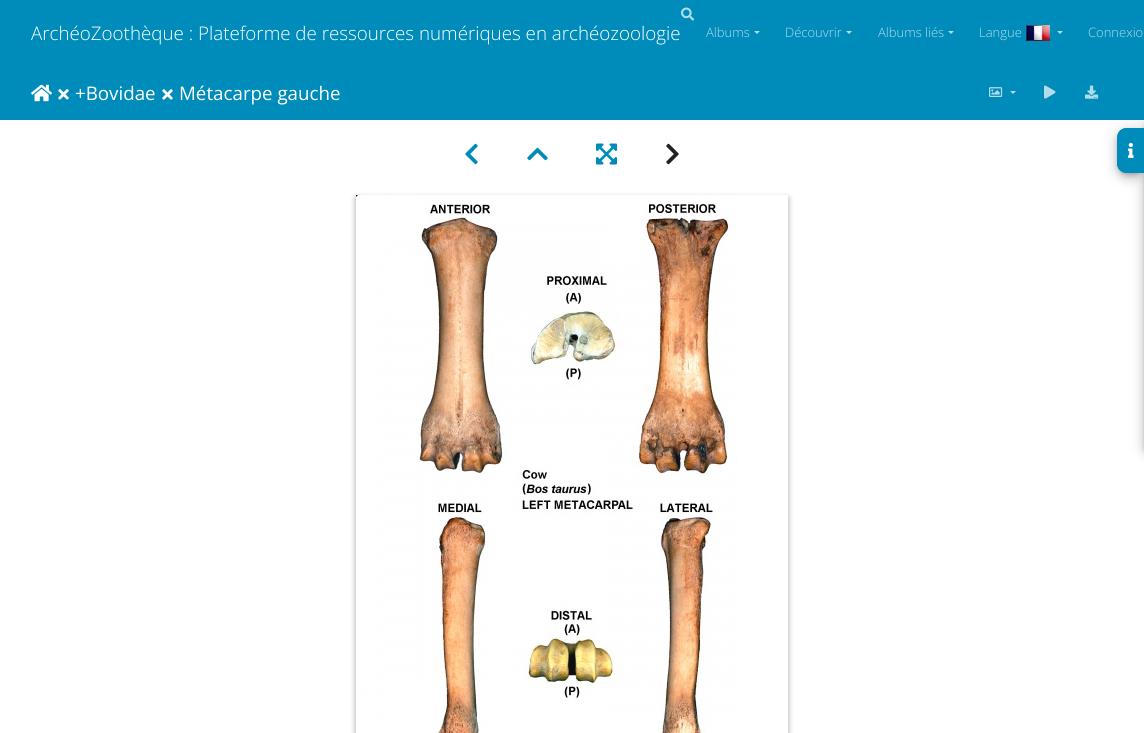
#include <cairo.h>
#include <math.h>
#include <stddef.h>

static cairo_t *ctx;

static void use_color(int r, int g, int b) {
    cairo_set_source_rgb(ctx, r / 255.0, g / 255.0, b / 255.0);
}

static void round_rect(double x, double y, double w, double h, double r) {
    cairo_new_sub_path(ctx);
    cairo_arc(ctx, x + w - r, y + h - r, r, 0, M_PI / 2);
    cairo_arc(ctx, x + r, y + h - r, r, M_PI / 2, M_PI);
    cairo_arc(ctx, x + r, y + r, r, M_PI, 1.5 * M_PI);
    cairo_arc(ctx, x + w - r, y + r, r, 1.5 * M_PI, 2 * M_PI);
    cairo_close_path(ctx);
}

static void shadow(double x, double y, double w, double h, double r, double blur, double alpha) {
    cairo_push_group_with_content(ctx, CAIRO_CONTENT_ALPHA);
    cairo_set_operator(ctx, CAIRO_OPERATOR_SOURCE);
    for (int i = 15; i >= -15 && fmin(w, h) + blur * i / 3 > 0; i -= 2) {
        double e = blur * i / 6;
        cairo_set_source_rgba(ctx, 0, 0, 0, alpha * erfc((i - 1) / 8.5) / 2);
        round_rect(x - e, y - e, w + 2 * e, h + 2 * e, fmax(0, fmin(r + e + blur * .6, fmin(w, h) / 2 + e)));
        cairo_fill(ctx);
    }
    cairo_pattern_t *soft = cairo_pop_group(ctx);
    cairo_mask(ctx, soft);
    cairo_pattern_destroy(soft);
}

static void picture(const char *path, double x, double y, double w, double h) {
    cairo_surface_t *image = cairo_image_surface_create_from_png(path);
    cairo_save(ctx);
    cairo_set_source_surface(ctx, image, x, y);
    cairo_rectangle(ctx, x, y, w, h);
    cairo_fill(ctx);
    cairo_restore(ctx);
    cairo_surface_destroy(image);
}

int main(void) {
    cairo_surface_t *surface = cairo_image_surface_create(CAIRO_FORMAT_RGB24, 1144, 733);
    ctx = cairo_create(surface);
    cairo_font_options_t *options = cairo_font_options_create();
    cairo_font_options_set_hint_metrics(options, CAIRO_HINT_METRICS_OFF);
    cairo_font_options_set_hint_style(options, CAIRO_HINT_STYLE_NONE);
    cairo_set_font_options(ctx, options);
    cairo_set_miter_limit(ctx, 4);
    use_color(255, 255, 255);
    cairo_paint(ctx);
    use_color(0, 0, 0);
    shadow(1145, 122, 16, 332, 9, 2.5, 0.2);
    shadow(1144, 119, 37, 334, 10, 9, 0.12);
    shadow(1144, 124, 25, 334, 10, 5, 0.14);
    shadow(1117, 129, 27, 45, 10, 9, 0.12);
    shadow(1117, 134, 27, 45, 10, 5, 0.14);
    use_color(0, 140, 186);
    cairo_rectangle(ctx, 0, 0, 1144, 120);
    cairo_fill(ctx);
    cairo_select_font_face(ctx, "Open Sans Light", CAIRO_FONT_SLANT_NORMAL, CAIRO_FONT_WEIGHT_NORMAL);
    cairo_set_font_size(ctx, 18.75);
    use_color(255, 255, 255);
    cairo_move_to(ctx, 31, 40);
    cairo_show_text(ctx, "ArchéoZoothèque : Plateforme de ressources numériques en archéozoologie");
    picture("img1.png", 681, 7, 14, 14);
    cairo_set_font_size(ctx, 13);
    use_color(179, 221, 234);
    cairo_move_to(ctx, 706, 37);
    cairo_show_text(ctx, "Albums");
    cairo_new_path(ctx);
    cairo_move_to(ctx, 754, 31);
    cairo_line_to(ctx, 760, 31);
    cairo_line_to(ctx, 757, 34);
    cairo_close_path(ctx);
    cairo_fill(ctx);
    cairo_move_to(ctx, 785, 37);
    cairo_show_text(ctx, "Découvrir");
    cairo_new_path(ctx);
    cairo_move_to(ctx, 846, 31);
    cairo_line_to(ctx, 852, 31);
    cairo_line_to(ctx, 849, 34);
    cairo_close_path(ctx);
    cairo_fill(ctx);
    cairo_move_to(ctx, 878, 37);
    cairo_show_text(ctx, "Albums liés");
    cairo_new_path(ctx);
    cairo_move_to(ctx, 948, 31);
    cairo_line_to(ctx, 954, 31);
    cairo_line_to(ctx, 951, 34);
    cairo_close_path(ctx);
    cairo_fill(ctx);
    cairo_move_to(ctx, 979, 37);
    cairo_show_text(ctx, "Langue");
    picture("img2.png", 1026, 25, 24, 16);
    cairo_new_path(ctx);
    cairo_move_to(ctx, 1057, 31);
    cairo_line_to(ctx, 1063, 31);
    cairo_line_to(ctx, 1060, 34);
    cairo_close_path(ctx);
    cairo_fill(ctx);
    cairo_move_to(ctx, 1088, 37);
    cairo_show_text(ctx, "Connexio");
    picture("img3.png", 31, 84, 21, 18);
    picture("img4.png", 58, 89, 11, 11);
    cairo_select_font_face(ctx, "Open Sans", CAIRO_FONT_SLANT_NORMAL, CAIRO_FONT_WEIGHT_NORMAL);
    cairo_set_font_size(ctx, 18.75);
    use_color(255, 255, 255);
    cairo_move_to(ctx, 75, 100);
    cairo_show_text(ctx, "+Bovidae");
    picture("img5.png", 162, 89, 11, 11);
    cairo_move_to(ctx, 179, 100);
    cairo_show_text(ctx, "Métacarpe gauche");
    picture("img6.png", 989, 87, 14, 10);
    use_color(179, 221, 234);
    cairo_new_path(ctx);
    cairo_move_to(ctx, 1010, 91);
    cairo_line_to(ctx, 1016, 91);
    cairo_line_to(ctx, 1013, 94);
    cairo_close_path(ctx);
    cairo_fill(ctx);
    picture("img7.png", 1044, 85, 12, 14);
    picture("img8.png", 1085, 85, 14, 14);
    picture("img9.png", 465, 143, 13, 22);
    picture("img10.png", 527, 147, 21, 14);
    picture("img11.png", 596, 143, 21, 22);
    picture("img12.png", 666, 143, 13, 22);
    use_color(0, 0, 0);
    shadow(1118, 132, 25, 43, 9, 2.5, 0.2);
    use_color(0, 140, 186);
    cairo_new_path(ctx);
    cairo_move_to(ctx, 1127, 128);
    cairo_line_to(ctx, 1144, 128);
    cairo_line_to(ctx, 1144, 173);
    cairo_line_to(ctx, 1127, 173);
    cairo_curve_to(ctx, 1121.5, 173, 1117, 168.5, 1117, 163);
    cairo_line_to(ctx, 1117, 138);
    cairo_curve_to(ctx, 1117, 132.5, 1121.5, 128, 1127, 128);
    cairo_close_path(ctx);
    cairo_fill(ctx);
    cairo_set_fill_rule(ctx, CAIRO_FILL_RULE_EVEN_ODD);
    cairo_new_path(ctx);
    cairo_move_to(ctx, 1127, 128);
    cairo_line_to(ctx, 1144, 128);
    cairo_line_to(ctx, 1144, 173);
    cairo_line_to(ctx, 1127, 173);
    cairo_curve_to(ctx, 1121, 173, 1117, 169, 1117, 163);
    cairo_line_to(ctx, 1117, 138);
    cairo_curve_to(ctx, 1117, 132, 1121, 128, 1127, 128);
    cairo_close_path(ctx);
    cairo_move_to(ctx, 1127, 129);
    cairo_line_to(ctx, 1144, 129);
    cairo_line_to(ctx, 1144, 172);
    cairo_line_to(ctx, 1127, 172);
    cairo_curve_to(ctx, 1122, 172, 1118, 168, 1118, 163);
    cairo_line_to(ctx, 1118, 138);
    cairo_curve_to(ctx, 1118, 133, 1122, 129, 1127, 129);
    cairo_close_path(ctx);
    cairo_fill(ctx);
    picture("img13.png", 1128, 142, 6, 16);
    cairo_save(ctx);
    cairo_new_path(ctx);
    cairo_move_to(ctx, 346, 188);
    cairo_line_to(ctx, 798, 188);
    cairo_line_to(ctx, 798, 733);
    cairo_line_to(ctx, 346, 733);
    cairo_close_path(ctx);
    cairo_move_to(ctx, 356, 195);
    cairo_line_to(ctx, 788, 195);
    cairo_line_to(ctx, 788, 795);
    cairo_line_to(ctx, 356, 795);
    cairo_close_path(ctx);
    cairo_clip(ctx);
    use_color(0, 0, 0);
    shadow(356, 198, 432, 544, 0, 3, 0.23);
    shadow(356, 198, 432, 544, 0, 3, 0.16);
    cairo_restore(ctx);
    picture("img14.png", 356, 195, 382, 538);
    cairo_surface_write_to_png(surface, "result.png");
    cairo_font_options_destroy(options);
    cairo_destroy(ctx);
    cairo_surface_destroy(surface);
    return 0;
}
